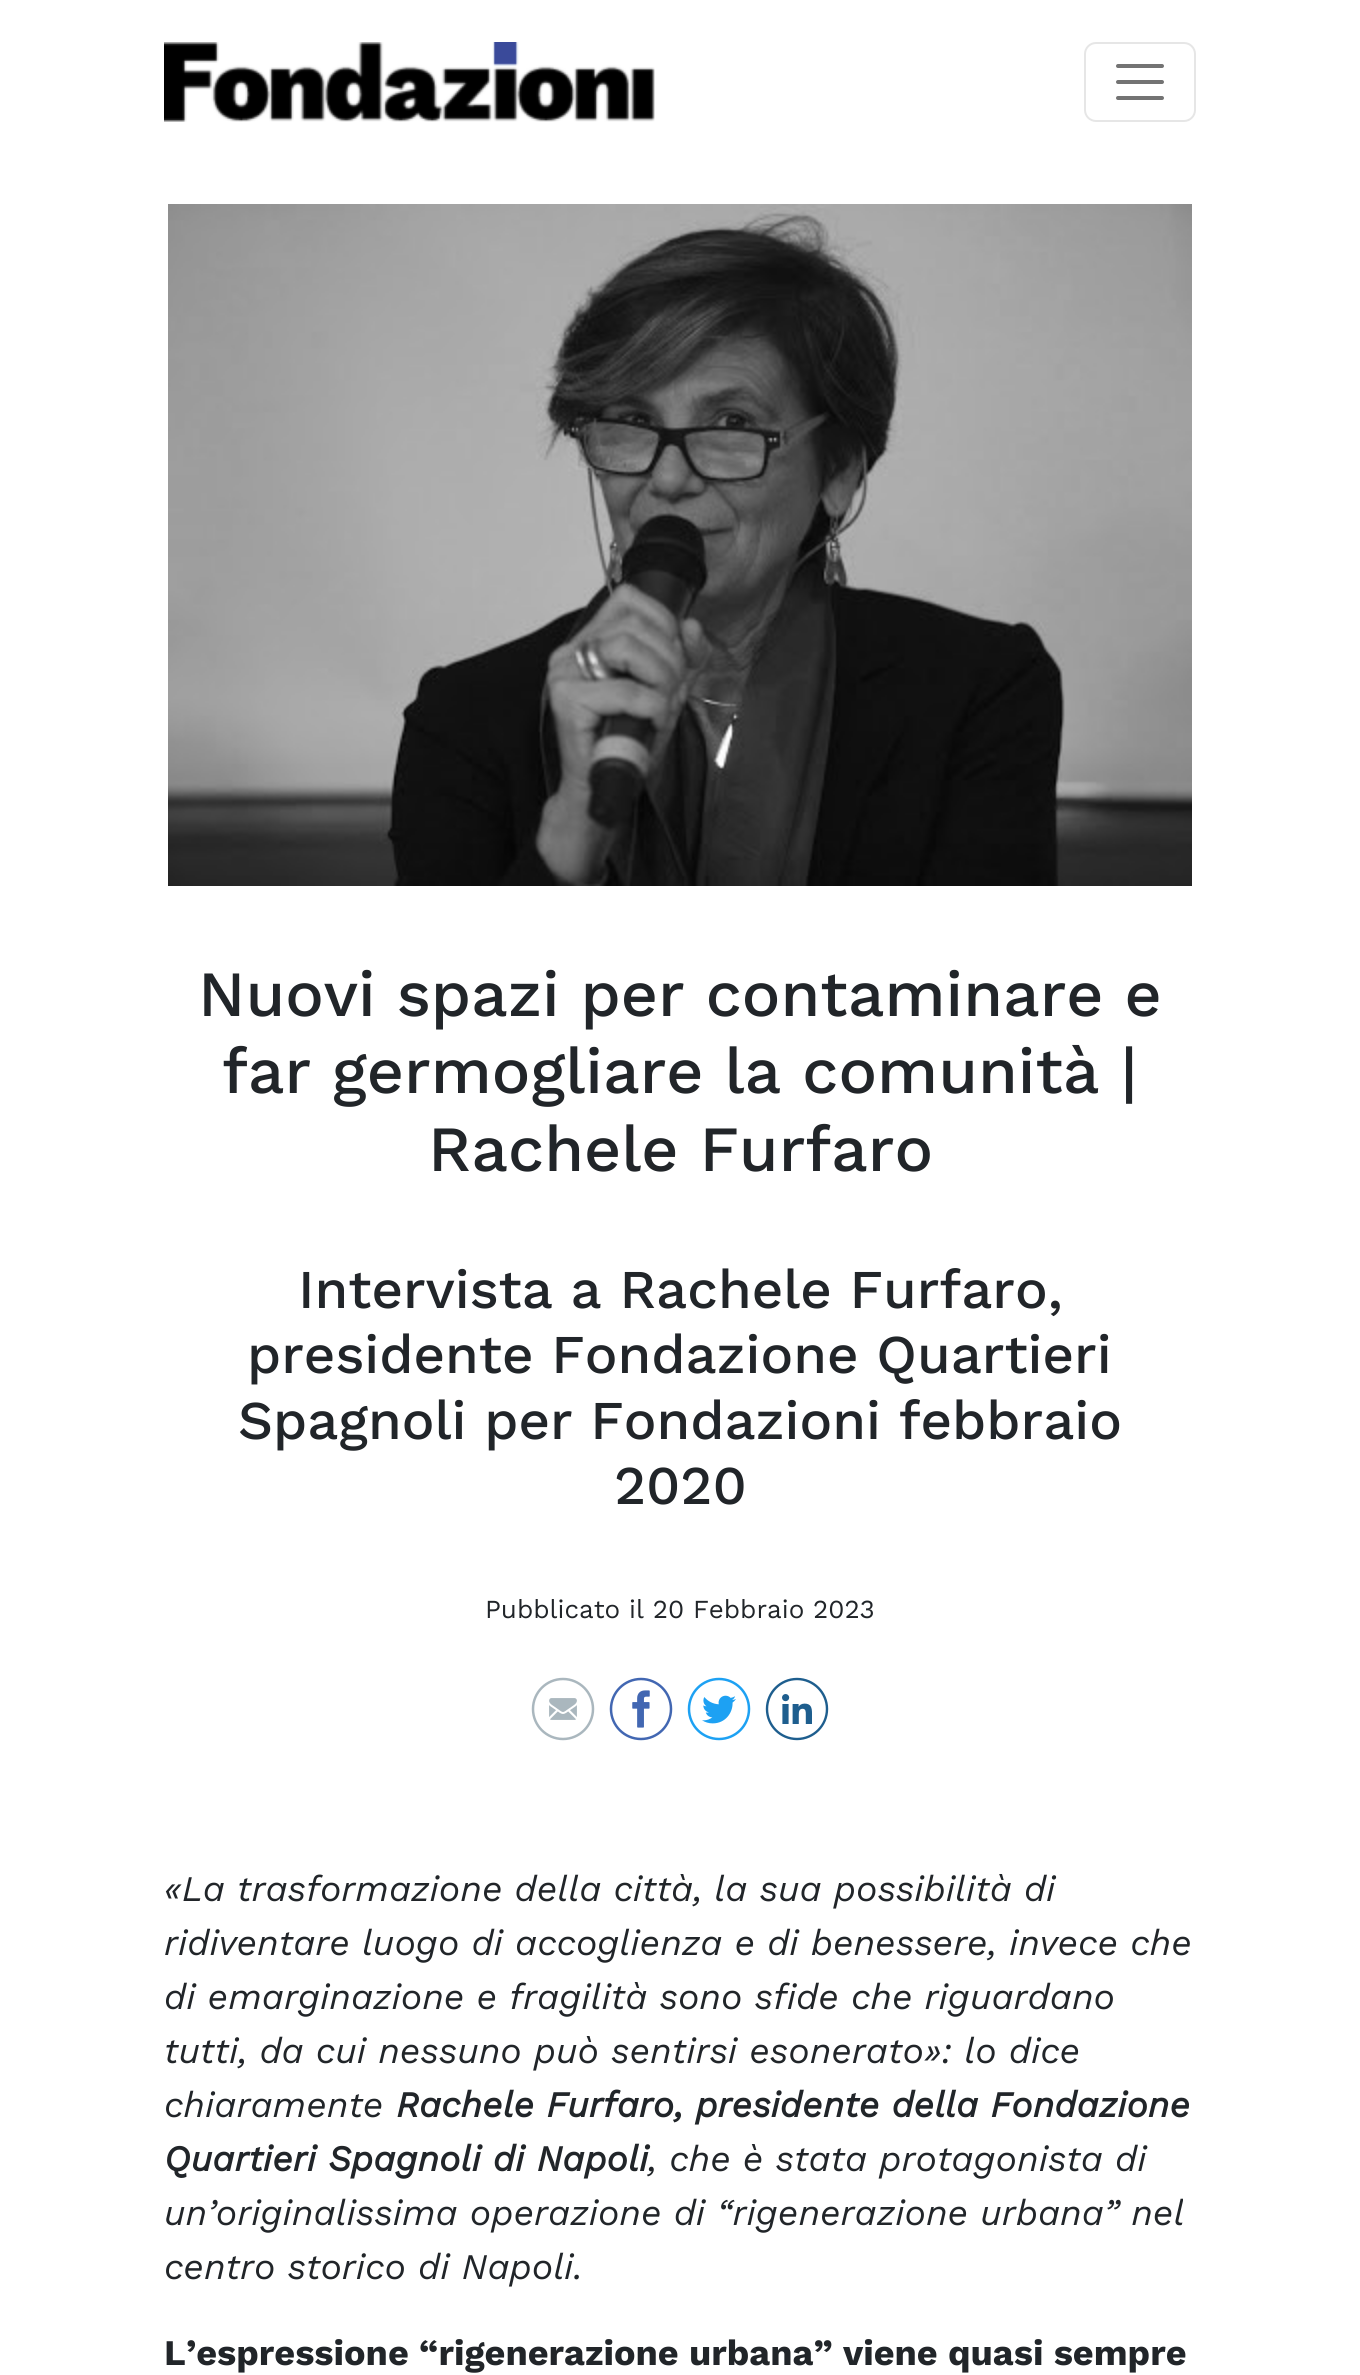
#include <cairo.h>
#include <math.h>
#include <stddef.h>

static cairo_t *ctx;

static void use_color(int r, int g, int b) {
    cairo_set_source_rgb(ctx, r / 255.0, g / 255.0, b / 255.0);
}

static void round_rect(double x, double y, double w, double h, double r) {
    cairo_new_sub_path(ctx);
    cairo_arc(ctx, x + w - r, y + h - r, r, 0, M_PI / 2);
    cairo_arc(ctx, x + r, y + h - r, r, M_PI / 2, M_PI);
    cairo_arc(ctx, x + r, y + r, r, M_PI, 1.5 * M_PI);
    cairo_arc(ctx, x + w - r, y + r, r, 1.5 * M_PI, 2 * M_PI);
    cairo_close_path(ctx);
}

static void picture(const char *path, double x, double y, double w, double h) {
    cairo_surface_t *image = cairo_image_surface_create_from_png(path);
    cairo_save(ctx);
    cairo_set_source_surface(ctx, image, x, y);
    cairo_rectangle(ctx, x, y, w, h);
    cairo_fill(ctx);
    cairo_restore(ctx);
    cairo_surface_destroy(image);
}

int main(void) {
    cairo_surface_t *surface = cairo_image_surface_create(CAIRO_FORMAT_RGB24, 1360, 2375);
    ctx = cairo_create(surface);
    cairo_font_options_t *options = cairo_font_options_create();
    cairo_font_options_set_hint_metrics(options, CAIRO_HINT_METRICS_OFF);
    cairo_font_options_set_hint_style(options, CAIRO_HINT_STYLE_NONE);
    cairo_set_font_options(ctx, options);
    cairo_set_miter_limit(ctx, 4);
    use_color(255, 255, 255);
    cairo_paint(ctx);
    picture("img1.png", 164, 42, 491, 80);
    round_rect(1085, 43, 110, 78, 11);
    use_color(230, 230, 230);
    cairo_stroke(ctx);
    cairo_new_path(ctx);
    cairo_move_to(ctx, 1118, 66);
    cairo_line_to(ctx, 1162, 66);
    cairo_move_to(ctx, 1118, 82);
    cairo_line_to(ctx, 1162, 82);
    cairo_move_to(ctx, 1118, 98);
    cairo_line_to(ctx, 1162, 98);
    use_color(115, 115, 115);
    cairo_set_line_width(ctx, 4);
    cairo_set_line_cap(ctx, CAIRO_LINE_CAP_ROUND);
    cairo_stroke(ctx);
    picture("img2.png", 168, 204, 1024, 682);
    cairo_select_font_face(ctx, "Work Sans Medium", CAIRO_FONT_SLANT_NORMAL, CAIRO_FONT_WEIGHT_NORMAL);
    cairo_set_font_size(ctx, 64.4);
    use_color(33, 37, 41);
    cairo_move_to(ctx, 198, 1016);
    cairo_show_text(ctx, "Nuovi spazi per contaminare e");
    cairo_move_to(ctx, 222, 1093);
    cairo_show_text(ctx, "far germogliare la comunità |");
    cairo_move_to(ctx, 428, 1171);
    cairo_show_text(ctx, "Rachele Furfaro");
    cairo_set_font_size(ctx, 54.6);
    cairo_move_to(ctx, 298, 1308);
    cairo_show_text(ctx, "Intervista a Rachele Furfaro,");
    cairo_move_to(ctx, 247, 1373);
    cairo_show_text(ctx, "presidente Fondazione Quartieri");
    cairo_move_to(ctx, 238, 1439);
    cairo_show_text(ctx, "Spagnoli per Fondazioni febbraio");
    cairo_move_to(ctx, 614, 1504);
    cairo_show_text(ctx, "2020");
    cairo_select_font_face(ctx, "Work Sans", CAIRO_FONT_SLANT_NORMAL, CAIRO_FONT_WEIGHT_NORMAL);
    cairo_set_font_size(ctx, 26);
    cairo_move_to(ctx, 485, 1618);
    cairo_show_text(ctx, "Pubblicato il 20 Febbraio 2023");
    picture("img3.png", 531, 1677, 64, 64);
    picture("img4.png", 609, 1677, 64, 64);
    picture("img5.png", 687, 1677, 64, 64);
    picture("img6.png", 765, 1677, 64, 64);
    cairo_select_font_face(ctx, "Work Sans", CAIRO_FONT_SLANT_ITALIC, CAIRO_FONT_WEIGHT_NORMAL);
    cairo_set_font_size(ctx, 36);
    cairo_move_to(ctx, 164, 1901);
    cairo_show_text(ctx, "«La trasformazione della città, la sua possibilità di");
    cairo_move_to(ctx, 164, 1955);
    cairo_show_text(ctx, "ridiventare luogo di accoglienza e di benessere, invece che");
    cairo_move_to(ctx, 164, 2009);
    cairo_show_text(ctx, "di emarginazione e fragilità sono sfide che riguardano");
    cairo_move_to(ctx, 164, 2063);
    cairo_show_text(ctx, "tutti, da cui nessuno può sentirsi esonerato»: lo dice");
    cairo_move_to(ctx, 164, 2117);
    cairo_show_text(ctx, "chiaramente");
    cairo_select_font_face(ctx, "Work Sans", CAIRO_FONT_SLANT_ITALIC, CAIRO_FONT_WEIGHT_BOLD);
    cairo_move_to(ctx, 396, 2117);
    cairo_show_text(ctx, "Rachele Furfaro, presidente della Fondazione");
    cairo_move_to(ctx, 164, 2171);
    cairo_show_text(ctx, "Quartieri Spagnoli di Napoli");
    cairo_select_font_face(ctx, "Work Sans", CAIRO_FONT_SLANT_ITALIC, CAIRO_FONT_WEIGHT_NORMAL);
    cairo_move_to(ctx, 648, 2171);
    cairo_show_text(ctx, ", che è stata protagonista di");
    cairo_move_to(ctx, 164, 2225);
    cairo_show_text(ctx, "un’originalissima operazione di “rigenerazione urbana” nel");
    cairo_move_to(ctx, 164, 2279);
    cairo_show_text(ctx, "centro storico di Napoli.");
    cairo_select_font_face(ctx, "Work Sans", CAIRO_FONT_SLANT_NORMAL, CAIRO_FONT_WEIGHT_BOLD);
    cairo_move_to(ctx, 164, 2365);
    cairo_show_text(ctx, "L’espressione “rigenerazione urbana” viene quasi sempre");
    cairo_surface_write_to_png(surface, "result.png");
    cairo_font_options_destroy(options);
    cairo_destroy(ctx);
    cairo_surface_destroy(surface);
    return 0;
}
